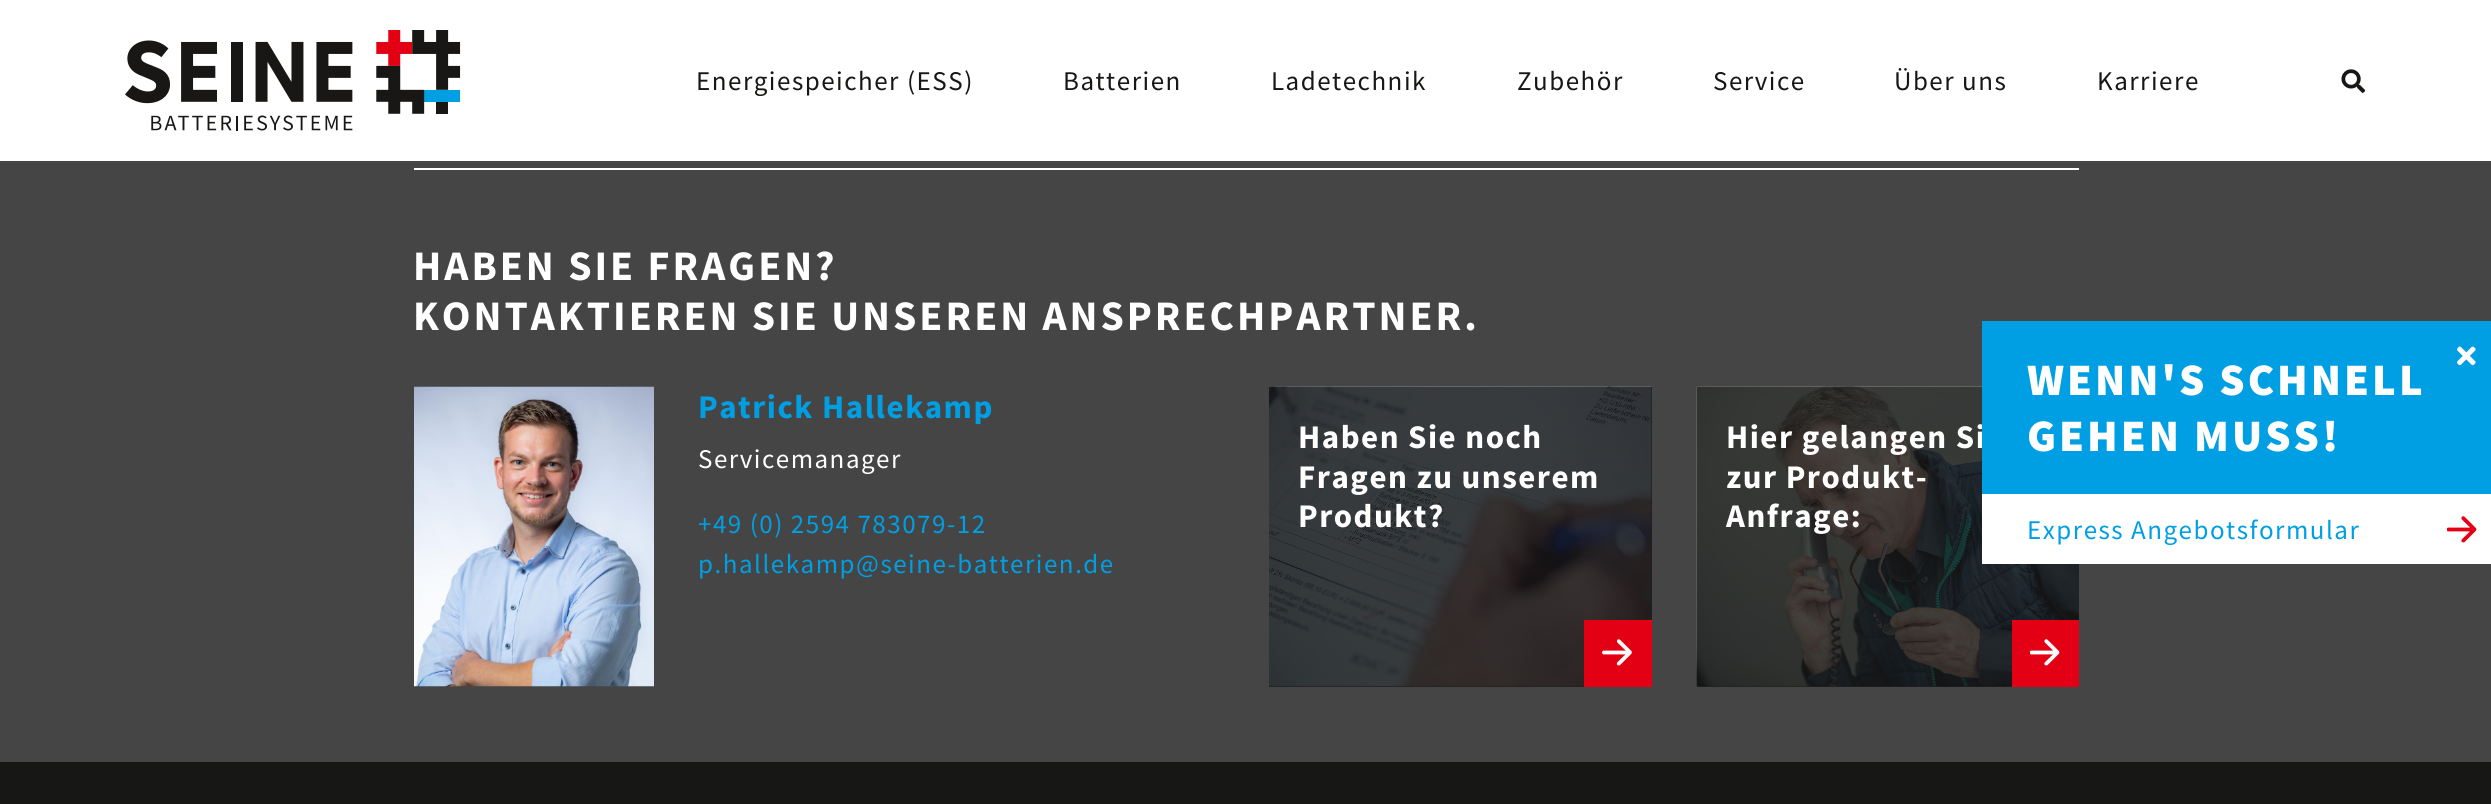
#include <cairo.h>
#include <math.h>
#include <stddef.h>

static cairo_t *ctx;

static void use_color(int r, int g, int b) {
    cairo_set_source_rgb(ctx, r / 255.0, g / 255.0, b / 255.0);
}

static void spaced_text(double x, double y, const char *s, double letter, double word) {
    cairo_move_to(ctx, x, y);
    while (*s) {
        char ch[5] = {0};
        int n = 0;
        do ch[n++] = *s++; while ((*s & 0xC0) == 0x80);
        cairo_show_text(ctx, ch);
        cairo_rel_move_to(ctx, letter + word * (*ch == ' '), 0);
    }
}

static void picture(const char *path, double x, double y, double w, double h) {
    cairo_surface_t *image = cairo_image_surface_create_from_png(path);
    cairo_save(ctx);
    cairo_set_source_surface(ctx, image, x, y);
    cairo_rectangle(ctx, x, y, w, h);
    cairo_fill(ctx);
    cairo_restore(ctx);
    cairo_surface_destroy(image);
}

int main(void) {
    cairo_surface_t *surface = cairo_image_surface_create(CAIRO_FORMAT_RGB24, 2491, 804);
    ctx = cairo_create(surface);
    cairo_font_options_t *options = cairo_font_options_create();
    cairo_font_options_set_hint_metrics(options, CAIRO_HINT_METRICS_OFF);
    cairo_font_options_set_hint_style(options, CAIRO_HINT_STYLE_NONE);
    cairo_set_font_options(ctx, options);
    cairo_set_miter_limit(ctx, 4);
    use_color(69, 69, 69);
    cairo_paint(ctx);
    use_color(32, 32, 31);
    cairo_rectangle(ctx, 1697, 686, 315, 1);
    cairo_fill(ctx);
    cairo_rectangle(ctx, 1269, 387, 383, 300);
    cairo_fill(ctx);
    use_color(255, 255, 255);
    cairo_rectangle(ctx, 0, 0, 2491, 161);
    cairo_fill(ctx);
    picture("img1.png", 125, 30, 336, 101);
    cairo_select_font_face(ctx, "Source Sans Pro", CAIRO_FONT_SLANT_NORMAL, CAIRO_FONT_WEIGHT_NORMAL);
    cairo_set_font_size(ctx, 27);
    use_color(23, 23, 21);
    spaced_text(696, 90, "Energiespeicher (ESS)", 1.5, 0);
    spaced_text(1063, 90, "Batterien", 1.5, 0);
    spaced_text(1271, 90, "Ladetechnik", 1.5, 0);
    spaced_text(1517, 90, "Zubehör", 1.5, 0);
    spaced_text(1713, 90, "Service", 1.5, 0);
    spaced_text(1894, 90, "Über uns", 1.5, 0);
    spaced_text(2097, 90, "Karriere", 1.5, 0);
    picture("img2.png", 2341, 69, 25, 24);
    use_color(255, 255, 255);
    cairo_rectangle(ctx, 414, 168, 1665, 2);
    cairo_fill(ctx);
    cairo_select_font_face(ctx, "Source Sans Pro", CAIRO_FONT_SLANT_NORMAL, CAIRO_FONT_WEIGHT_BOLD);
    cairo_set_font_size(ctx, 42);
    spaced_text(413, 280, "HABEN SIE FRAGEN?", 3, 0);
    spaced_text(413, 330, "KONTAKTIEREN SIE UNSEREN ANSPRECHPARTNER.", 3, 0);
    picture("img3.png", 414, 386, 240, 301);
    cairo_set_font_size(ctx, 33);
    use_color(0, 159, 227);
    spaced_text(698, 418, "Patrick Hallekamp", 1.5, 0);
    cairo_select_font_face(ctx, "Source Sans Pro", CAIRO_FONT_SLANT_NORMAL, CAIRO_FONT_WEIGHT_NORMAL);
    cairo_set_font_size(ctx, 27);
    use_color(255, 255, 255);
    spaced_text(698, 468, "Servicemanager", 1.5, 0);
    use_color(0, 159, 227);
    spaced_text(698, 533, "+49 (0) 2594 783079-12", 1.5, 0);
    spaced_text(698, 573, "p.hallekamp@seine-batterien.de", 1.5, 0);
    picture("img4.png", 1269, 386, 383, 301);
    cairo_select_font_face(ctx, "Source Sans Pro", CAIRO_FONT_SLANT_NORMAL, CAIRO_FONT_WEIGHT_BOLD);
    cairo_set_font_size(ctx, 33);
    use_color(255, 255, 255);
    spaced_text(1298, 448, "Haben Sie noch", 1.5, 0);
    spaced_text(1298, 488, "Fragen zu unserem", 1.5, 0);
    spaced_text(1298, 527, "Produkt?", 1.5, 0);
    use_color(227, 0, 20);
    cairo_rectangle(ctx, 1584, 620, 68, 67);
    cairo_fill(ctx);
    picture("img5.png", 1602, 639, 30, 27);
    picture("img6.png", 1696, 386, 383, 301);
    use_color(255, 255, 255);
    spaced_text(1726, 448, "Hier gelangen Si", 1.5, 0);
    spaced_text(1726, 488, "zur Produkt-", 1.5, 0);
    spaced_text(1726, 527, "Anfrage:", 1.5, 0);
    use_color(227, 0, 20);
    cairo_rectangle(ctx, 2012, 620, 67, 67);
    cairo_fill(ctx);
    picture("img7.png", 2030, 639, 30, 27);
    use_color(0, 159, 227);
    cairo_rectangle(ctx, 1982, 321, 509, 173);
    cairo_fill(ctx);
    picture("img8.png", 2457, 346, 19, 20);
    cairo_select_font_face(ctx, "Source Sans Pro Black", CAIRO_FONT_SLANT_NORMAL, CAIRO_FONT_WEIGHT_NORMAL);
    cairo_set_font_size(ctx, 45);
    use_color(255, 255, 255);
    spaced_text(2027, 395, "WENN'S SCHNELL", 3, 0);
    spaced_text(2027, 451, "GEHEN MUSS!", 3, 0);
    cairo_rectangle(ctx, 1982, 494, 509, 70);
    cairo_fill(ctx);
    cairo_select_font_face(ctx, "Source Sans Pro", CAIRO_FONT_SLANT_NORMAL, CAIRO_FONT_WEIGHT_NORMAL);
    cairo_set_font_size(ctx, 27);
    use_color(0, 159, 227);
    spaced_text(2027, 539, "Express Angebotsformular", 1.5, 0);
    picture("img9.png", 2447, 516, 30, 27);
    use_color(23, 23, 21);
    cairo_rectangle(ctx, 0, 762, 2491, 42);
    cairo_fill(ctx);
    cairo_surface_write_to_png(surface, "result.png");
    cairo_font_options_destroy(options);
    cairo_destroy(ctx);
    cairo_surface_destroy(surface);
    return 0;
}
